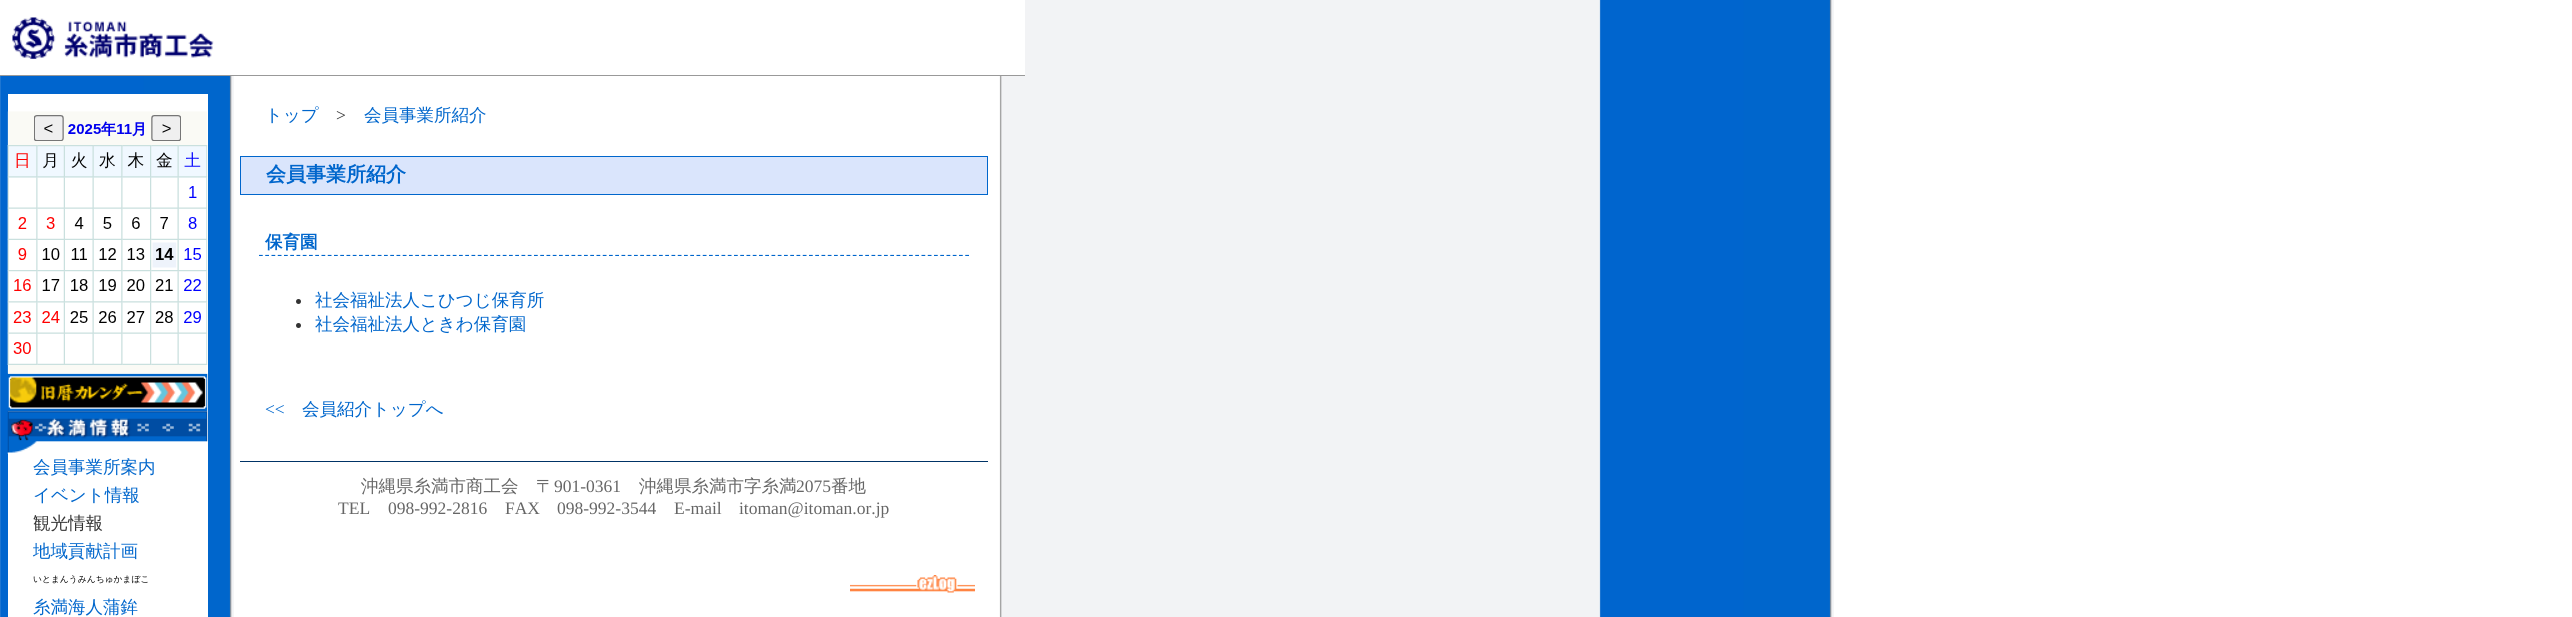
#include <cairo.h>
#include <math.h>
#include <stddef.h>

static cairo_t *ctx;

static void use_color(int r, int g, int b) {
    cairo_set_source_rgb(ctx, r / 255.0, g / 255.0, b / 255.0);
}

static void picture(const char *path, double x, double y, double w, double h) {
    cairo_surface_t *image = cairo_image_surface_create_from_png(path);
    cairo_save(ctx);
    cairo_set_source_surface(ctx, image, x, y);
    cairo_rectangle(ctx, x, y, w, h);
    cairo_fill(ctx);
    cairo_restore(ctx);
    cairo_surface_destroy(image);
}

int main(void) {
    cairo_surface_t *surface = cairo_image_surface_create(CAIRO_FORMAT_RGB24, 2572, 617);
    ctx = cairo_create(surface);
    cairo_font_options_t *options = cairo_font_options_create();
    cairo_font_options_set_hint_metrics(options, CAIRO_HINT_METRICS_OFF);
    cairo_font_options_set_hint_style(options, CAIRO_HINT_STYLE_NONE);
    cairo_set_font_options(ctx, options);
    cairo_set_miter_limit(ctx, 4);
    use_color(255, 255, 255);
    cairo_paint(ctx);
    picture("img1.png", 0, 0, 1834, 617);
    use_color(255, 255, 255);
    cairo_rectangle(ctx, 0, 0, 1025, 75);
    cairo_fill(ctx);
    use_color(153, 153, 153);
    cairo_rectangle(ctx, 0, 75, 1025, 1);
    cairo_fill(ctx);
    picture("img2.png", 12, 17, 202, 42);
    cairo_select_font_face(ctx, "WenQuanYi Zen Hei Medium", CAIRO_FONT_SLANT_NORMAL, CAIRO_FONT_WEIGHT_NORMAL);
    cairo_set_font_size(ctx, 17.5);
    use_color(0, 102, 204);
    cairo_move_to(ctx, 265, 121);
    cairo_show_text(ctx, "トップ");
    cairo_select_font_face(ctx, "Liberation Serif", CAIRO_FONT_SLANT_NORMAL, CAIRO_FONT_WEIGHT_NORMAL);
    use_color(51, 51, 51);
    cairo_move_to(ctx, 336, 121);
    cairo_show_text(ctx, ">");
    cairo_select_font_face(ctx, "WenQuanYi Zen Hei Medium", CAIRO_FONT_SLANT_NORMAL, CAIRO_FONT_WEIGHT_NORMAL);
    use_color(0, 102, 204);
    cairo_move_to(ctx, 364, 121);
    cairo_show_text(ctx, "会員事業所紹介");
    use_color(218, 229, 252);
    cairo_rectangle(ctx, 240.5, 156.5, 747, 38);
    cairo_fill_preserve(ctx);
    use_color(0, 102, 204);
    cairo_set_line_width(ctx, 1);
    cairo_stroke(ctx);
    cairo_select_font_face(ctx, "WenQuanYi Zen Hei", CAIRO_FONT_SLANT_NORMAL, CAIRO_FONT_WEIGHT_BOLD);
    cairo_set_font_size(ctx, 20);
    cairo_move_to(ctx, 266, 181);
    cairo_show_text(ctx, "会員事業所紹介");
    cairo_new_path(ctx);
    cairo_move_to(ctx, 259, 255.5);
    cairo_line_to(ctx, 969, 255.5);
    cairo_set_line_width(ctx, 1.2);
    cairo_set_dash(ctx, (double[]){3.75, 2.5}, 2, 0);
    cairo_stroke(ctx);
    cairo_set_font_size(ctx, 17.5);
    cairo_move_to(ctx, 265, 248);
    cairo_show_text(ctx, "保育園");
    use_color(255, 255, 255);
    cairo_rectangle(ctx, 259, 256, 710, 1);
    cairo_fill(ctx);
    use_color(51, 51, 51);
    cairo_arc(ctx, 298.5, 301.5, 2.5, 0, 2 * M_PI);
    cairo_fill(ctx);
    cairo_select_font_face(ctx, "WenQuanYi Zen Hei Medium", CAIRO_FONT_SLANT_NORMAL, CAIRO_FONT_WEIGHT_NORMAL);
    use_color(0, 102, 204);
    cairo_move_to(ctx, 315, 306);
    cairo_show_text(ctx, "社会福祉法人こひつじ保育所");
    use_color(51, 51, 51);
    cairo_new_path(ctx);
    cairo_arc(ctx, 298.5, 325.5, 2.5, 0, 2 * M_PI);
    cairo_fill(ctx);
    use_color(0, 102, 204);
    cairo_move_to(ctx, 315, 330);
    cairo_show_text(ctx, "社会福祉法人ときわ保育園");
    cairo_select_font_face(ctx, "Liberation Serif", CAIRO_FONT_SLANT_NORMAL, CAIRO_FONT_WEIGHT_NORMAL);
    cairo_move_to(ctx, 265, 415);
    cairo_show_text(ctx, "<<");
    cairo_select_font_face(ctx, "WenQuanYi Zen Hei Medium", CAIRO_FONT_SLANT_NORMAL, CAIRO_FONT_WEIGHT_NORMAL);
    cairo_move_to(ctx, 302, 415);
    cairo_show_text(ctx, "会員紹介トップへ");
    use_color(0, 51, 102);
    cairo_rectangle(ctx, 240, 461, 748, 1);
    cairo_fill(ctx);
    use_color(102, 102, 102);
    cairo_move_to(ctx, 361, 492);
    cairo_show_text(ctx, "沖縄県糸満市商工会　〒");
    cairo_select_font_face(ctx, "Liberation Serif", CAIRO_FONT_SLANT_NORMAL, CAIRO_FONT_WEIGHT_NORMAL);
    cairo_move_to(ctx, 554, 492);
    cairo_show_text(ctx, "901-0361");
    cairo_select_font_face(ctx, "WenQuanYi Zen Hei Medium", CAIRO_FONT_SLANT_NORMAL, CAIRO_FONT_WEIGHT_NORMAL);
    cairo_move_to(ctx, 639, 492);
    cairo_show_text(ctx, "沖縄県糸満市字糸満");
    cairo_select_font_face(ctx, "Liberation Serif", CAIRO_FONT_SLANT_NORMAL, CAIRO_FONT_WEIGHT_NORMAL);
    cairo_move_to(ctx, 796, 492);
    cairo_show_text(ctx, "2075");
    cairo_select_font_face(ctx, "WenQuanYi Zen Hei Medium", CAIRO_FONT_SLANT_NORMAL, CAIRO_FONT_WEIGHT_NORMAL);
    cairo_move_to(ctx, 831, 492);
    cairo_show_text(ctx, "番地");
    cairo_select_font_face(ctx, "Liberation Serif", CAIRO_FONT_SLANT_NORMAL, CAIRO_FONT_WEIGHT_NORMAL);
    cairo_move_to(ctx, 338, 514);
    cairo_show_text(ctx, "TEL");
    cairo_move_to(ctx, 388, 514);
    cairo_show_text(ctx, "098-992-2816");
    cairo_move_to(ctx, 505, 514);
    cairo_show_text(ctx, "FAX");
    cairo_move_to(ctx, 557, 514);
    cairo_show_text(ctx, "098-992-3544");
    cairo_move_to(ctx, 674, 514);
    cairo_show_text(ctx, "E-mail");
    cairo_move_to(ctx, 739, 514);
    cairo_show_text(ctx, "itoman@itoman.or.jp");
    use_color(255, 255, 255);
    cairo_rectangle(ctx, 8, 94, 200, 523);
    cairo_fill(ctx);
    picture("img4.png", 8, 373, 200, 39);
    picture("img3.png", 7, 111, 201, 263);
    picture("img5.png", 7, 411, 201, 43);
    cairo_select_font_face(ctx, "WenQuanYi Zen Hei Medium", CAIRO_FONT_SLANT_NORMAL, CAIRO_FONT_WEIGHT_NORMAL);
    use_color(0, 102, 204);
    cairo_move_to(ctx, 33, 473);
    cairo_show_text(ctx, "会員事業所案内");
    cairo_move_to(ctx, 33, 501);
    cairo_show_text(ctx, "イベント情報");
    use_color(51, 51, 51);
    cairo_move_to(ctx, 33, 529);
    cairo_show_text(ctx, "観光情報");
    use_color(0, 102, 204);
    cairo_move_to(ctx, 33, 557);
    cairo_show_text(ctx, "地域貢献計画");
    cairo_set_font_size(ctx, 8.75);
    use_color(0, 0, 0);
    cairo_move_to(ctx, 33, 582);
    cairo_show_text(ctx, "いとまんうみんちゅかまぼこ");
    cairo_set_font_size(ctx, 17.5);
    use_color(0, 102, 204);
    cairo_move_to(ctx, 33, 613);
    cairo_show_text(ctx, "糸満海人蒲鉾");
    picture("img6.png", 850, 575, 125, 18);
    cairo_surface_write_to_png(surface, "result.png");
    cairo_font_options_destroy(options);
    cairo_destroy(ctx);
    cairo_surface_destroy(surface);
    return 0;
}
